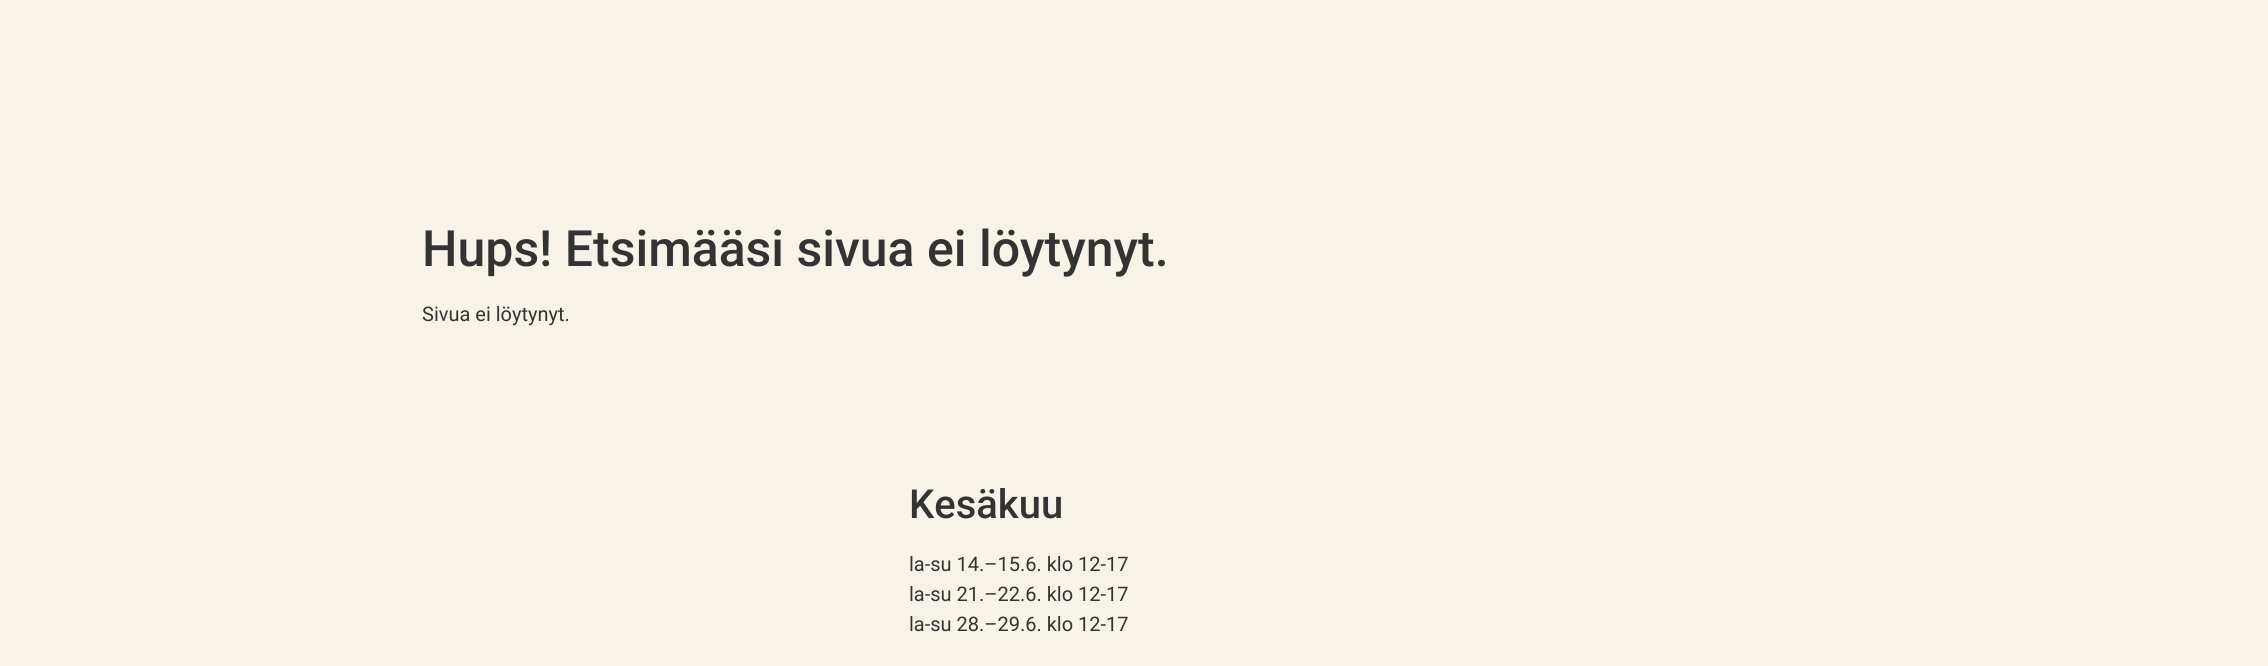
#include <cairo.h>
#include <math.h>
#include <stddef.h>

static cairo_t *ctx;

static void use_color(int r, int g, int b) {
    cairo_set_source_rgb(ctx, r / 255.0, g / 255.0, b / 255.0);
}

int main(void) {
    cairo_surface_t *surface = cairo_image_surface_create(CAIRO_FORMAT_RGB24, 2268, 666);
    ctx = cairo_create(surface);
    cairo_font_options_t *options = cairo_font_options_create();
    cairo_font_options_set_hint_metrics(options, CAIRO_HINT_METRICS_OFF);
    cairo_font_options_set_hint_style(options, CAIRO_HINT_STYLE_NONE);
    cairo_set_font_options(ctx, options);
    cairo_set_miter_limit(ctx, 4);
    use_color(248, 243, 233);
    cairo_paint(ctx);
    cairo_select_font_face(ctx, "Roboto Medium", CAIRO_FONT_SLANT_NORMAL, CAIRO_FONT_WEIGHT_NORMAL);
    cairo_set_font_size(ctx, 50);
    use_color(51, 51, 51);
    cairo_move_to(ctx, 422, 266);
    cairo_show_text(ctx, "Hups! Etsimääsi sivua ei löytynyt.");
    cairo_select_font_face(ctx, "Roboto", CAIRO_FONT_SLANT_NORMAL, CAIRO_FONT_WEIGHT_NORMAL);
    cairo_set_font_size(ctx, 20);
    cairo_move_to(ctx, 422, 321);
    cairo_show_text(ctx, "Sivua ei löytynyt.");
    cairo_select_font_face(ctx, "Roboto Medium", CAIRO_FONT_SLANT_NORMAL, CAIRO_FONT_WEIGHT_NORMAL);
    cairo_set_font_size(ctx, 40);
    cairo_move_to(ctx, 909, 518);
    cairo_show_text(ctx, "Kesäkuu");
    cairo_select_font_face(ctx, "Roboto", CAIRO_FONT_SLANT_NORMAL, CAIRO_FONT_WEIGHT_NORMAL);
    cairo_set_font_size(ctx, 20);
    cairo_move_to(ctx, 909, 571);
    cairo_show_text(ctx, "la-su 14.–15.6. klo 12-17");
    cairo_move_to(ctx, 909, 601);
    cairo_show_text(ctx, "la-su 21.–22.6. klo 12-17");
    cairo_move_to(ctx, 909, 631);
    cairo_show_text(ctx, "la-su 28.–29.6. klo 12-17");
    cairo_surface_write_to_png(surface, "result.png");
    cairo_font_options_destroy(options);
    cairo_destroy(ctx);
    cairo_surface_destroy(surface);
    return 0;
}
